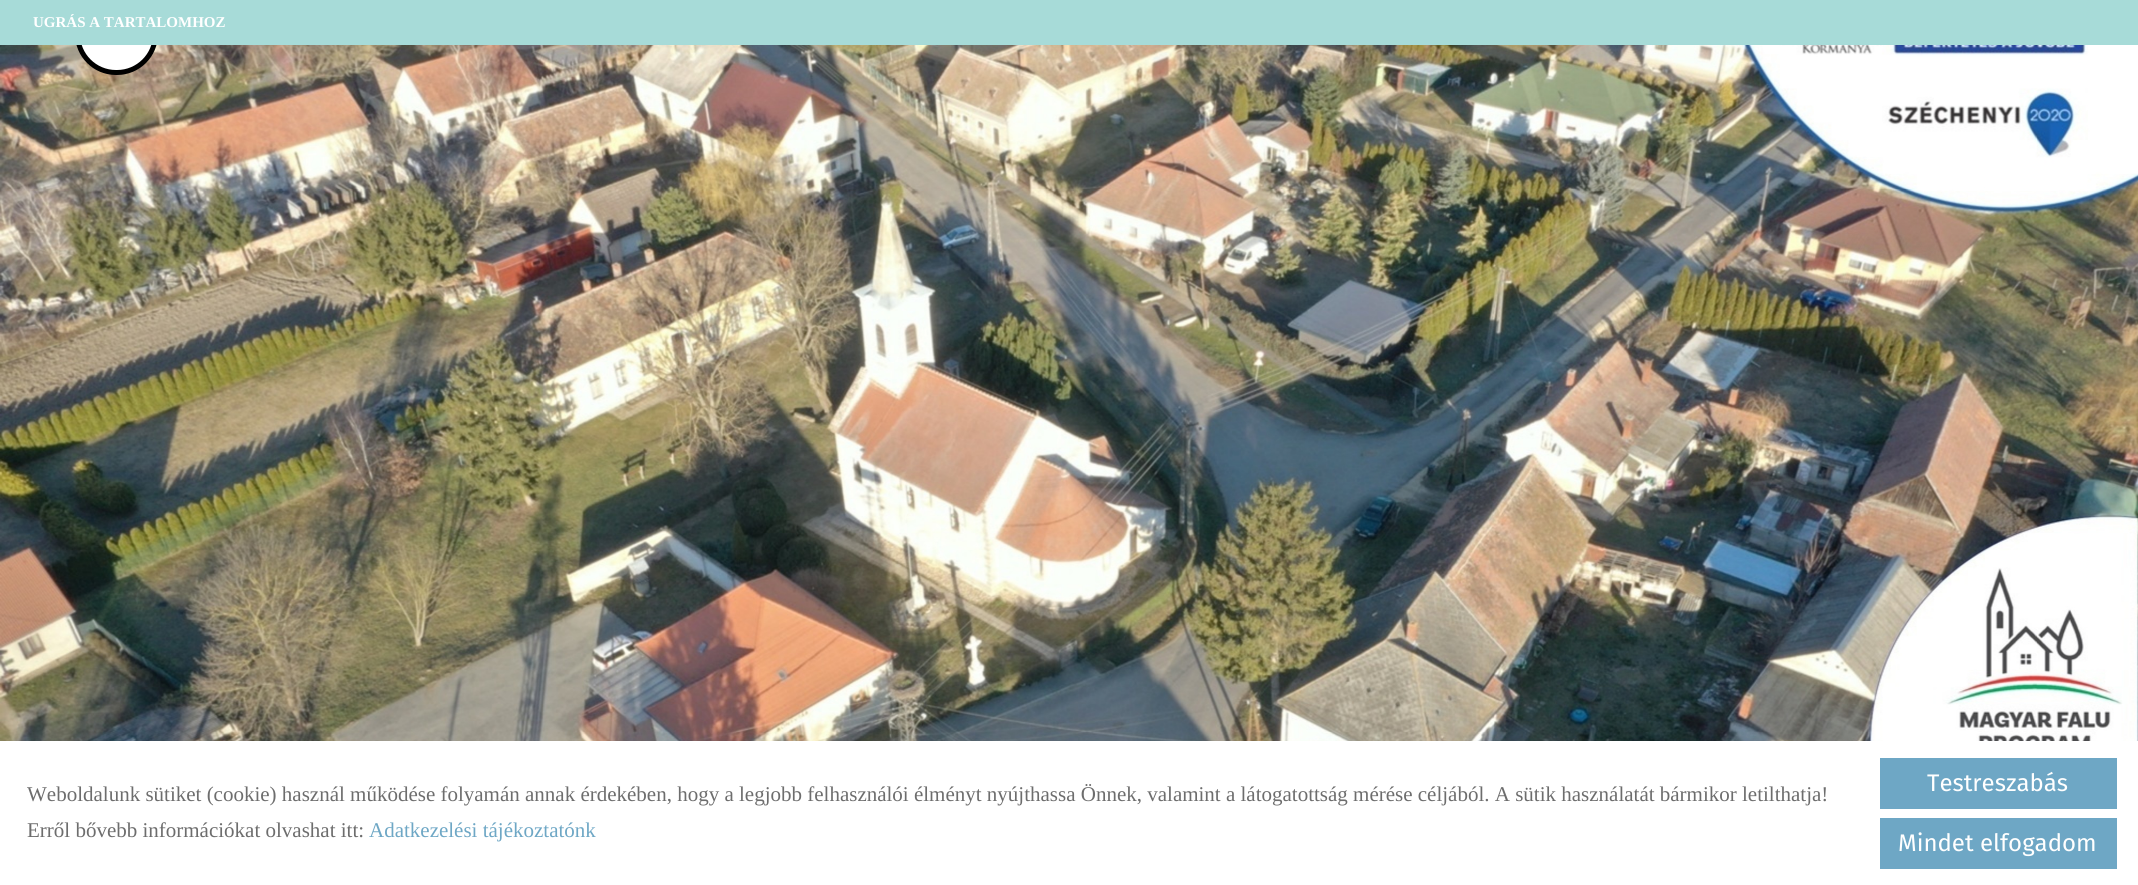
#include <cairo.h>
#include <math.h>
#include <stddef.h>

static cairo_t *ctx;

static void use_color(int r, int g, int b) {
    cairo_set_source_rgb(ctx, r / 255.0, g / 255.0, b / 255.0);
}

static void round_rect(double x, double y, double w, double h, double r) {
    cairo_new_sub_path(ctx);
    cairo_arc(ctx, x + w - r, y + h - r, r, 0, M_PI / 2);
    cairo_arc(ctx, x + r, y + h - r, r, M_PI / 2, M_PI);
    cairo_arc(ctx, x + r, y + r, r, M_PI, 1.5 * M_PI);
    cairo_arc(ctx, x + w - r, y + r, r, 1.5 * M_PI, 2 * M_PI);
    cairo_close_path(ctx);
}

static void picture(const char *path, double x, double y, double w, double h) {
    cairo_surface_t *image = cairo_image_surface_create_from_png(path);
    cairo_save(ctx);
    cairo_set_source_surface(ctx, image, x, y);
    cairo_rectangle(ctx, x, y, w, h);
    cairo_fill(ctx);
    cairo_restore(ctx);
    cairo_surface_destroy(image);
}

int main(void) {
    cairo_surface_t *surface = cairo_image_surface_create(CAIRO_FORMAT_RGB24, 2138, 885);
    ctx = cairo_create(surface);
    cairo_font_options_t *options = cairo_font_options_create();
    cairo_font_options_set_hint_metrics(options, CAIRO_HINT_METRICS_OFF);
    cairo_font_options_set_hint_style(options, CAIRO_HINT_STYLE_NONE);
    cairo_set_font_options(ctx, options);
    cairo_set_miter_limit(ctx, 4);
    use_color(255, 255, 255);
    cairo_paint(ctx);
    picture("img1.png", 0, 45, 2138, 696);
    use_color(255, 255, 255);
    round_rect(77.5, -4.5, 78, 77, 38.5);
    cairo_fill_preserve(ctx);
    use_color(0, 0, 0);
    cairo_set_line_width(ctx, 5);
    cairo_stroke(ctx);
    use_color(167, 219, 216);
    cairo_rectangle(ctx, 0, 0, 2138, 45);
    cairo_fill(ctx);
    cairo_select_font_face(ctx, "Liberation Serif", CAIRO_FONT_SLANT_NORMAL, CAIRO_FONT_WEIGHT_BOLD);
    cairo_set_font_size(ctx, 15);
    use_color(255, 255, 255);
    cairo_move_to(ctx, 33, 27);
    cairo_show_text(ctx, "UGRÁS A TARTALOMHOZ");
    cairo_select_font_face(ctx, "Liberation Serif", CAIRO_FONT_SLANT_NORMAL, CAIRO_FONT_WEIGHT_NORMAL);
    cairo_set_font_size(ctx, 21);
    use_color(109, 109, 109);
    cairo_move_to(ctx, 27, 801);
    cairo_show_text(ctx, "Weboldalunk sütiket (cookie) használ működése folyamán annak érdekében, hogy a legjobb felhasználói élményt nyújthassa Önnek, valamint a látogatottság mérése céljából. A sütik használatát bármikor letilthatja!");
    cairo_move_to(ctx, 27, 837);
    cairo_show_text(ctx, "Erről bővebb információkat olvashat itt:");
    use_color(110, 167, 197);
    cairo_move_to(ctx, 369, 837);
    cairo_show_text(ctx, "Adatkezelési tájékoztatónk");
    cairo_rectangle(ctx, 1880, 758, 237, 51);
    cairo_fill(ctx);
    cairo_select_font_face(ctx, "Fira Sans", CAIRO_FONT_SLANT_NORMAL, CAIRO_FONT_WEIGHT_NORMAL);
    cairo_set_font_size(ctx, 24);
    use_color(255, 255, 255);
    cairo_move_to(ctx, 1927, 791);
    cairo_show_text(ctx, "Testreszabás");
    use_color(110, 167, 197);
    cairo_rectangle(ctx, 1880, 818, 237, 51);
    cairo_fill(ctx);
    use_color(255, 255, 255);
    cairo_move_to(ctx, 1898, 851);
    cairo_show_text(ctx, "Mindet elfogadom");
    cairo_surface_write_to_png(surface, "result.png");
    cairo_font_options_destroy(options);
    cairo_destroy(ctx);
    cairo_surface_destroy(surface);
    return 0;
}
